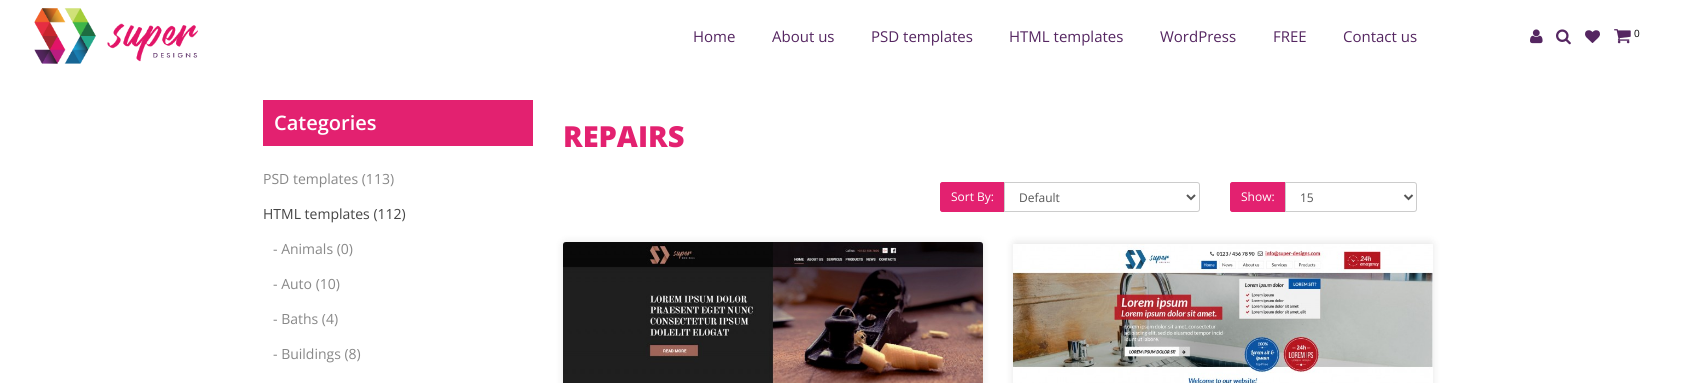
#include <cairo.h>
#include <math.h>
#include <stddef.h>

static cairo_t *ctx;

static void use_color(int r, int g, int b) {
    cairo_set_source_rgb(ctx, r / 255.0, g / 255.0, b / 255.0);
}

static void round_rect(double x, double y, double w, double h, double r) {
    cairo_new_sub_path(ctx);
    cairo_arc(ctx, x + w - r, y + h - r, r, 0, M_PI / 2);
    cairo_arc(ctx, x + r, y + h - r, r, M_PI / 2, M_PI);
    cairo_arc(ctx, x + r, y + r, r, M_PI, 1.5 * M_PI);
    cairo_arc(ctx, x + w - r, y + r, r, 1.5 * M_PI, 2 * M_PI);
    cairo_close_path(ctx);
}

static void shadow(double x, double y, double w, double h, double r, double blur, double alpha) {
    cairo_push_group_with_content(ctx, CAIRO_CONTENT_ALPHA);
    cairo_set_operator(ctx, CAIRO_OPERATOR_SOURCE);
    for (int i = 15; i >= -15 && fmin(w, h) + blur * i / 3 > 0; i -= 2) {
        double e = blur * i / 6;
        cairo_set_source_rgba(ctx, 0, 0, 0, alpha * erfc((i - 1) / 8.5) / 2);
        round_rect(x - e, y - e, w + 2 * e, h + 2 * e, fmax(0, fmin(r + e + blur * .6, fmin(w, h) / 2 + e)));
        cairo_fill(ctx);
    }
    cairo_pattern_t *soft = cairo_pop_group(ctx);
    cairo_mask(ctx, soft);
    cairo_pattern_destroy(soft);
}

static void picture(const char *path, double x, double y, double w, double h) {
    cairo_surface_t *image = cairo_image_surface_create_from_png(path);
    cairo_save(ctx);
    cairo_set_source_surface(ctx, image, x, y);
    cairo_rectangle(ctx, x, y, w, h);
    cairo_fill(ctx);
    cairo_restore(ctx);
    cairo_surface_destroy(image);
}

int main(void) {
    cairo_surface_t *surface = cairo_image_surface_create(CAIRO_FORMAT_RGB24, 1695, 383);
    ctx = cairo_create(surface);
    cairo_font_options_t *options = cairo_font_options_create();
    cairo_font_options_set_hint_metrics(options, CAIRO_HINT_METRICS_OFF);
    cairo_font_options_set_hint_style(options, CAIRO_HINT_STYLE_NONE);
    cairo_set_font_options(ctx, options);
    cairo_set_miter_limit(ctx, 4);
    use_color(255, 255, 255);
    cairo_paint(ctx);
    picture("img1.png", 34, 8, 164, 56);
    cairo_select_font_face(ctx, "Open Sans", CAIRO_FONT_SLANT_NORMAL, CAIRO_FONT_WEIGHT_NORMAL);
    cairo_set_font_size(ctx, 15);
    use_color(85, 38, 97);
    cairo_move_to(ctx, 693, 42);
    cairo_show_text(ctx, "Home");
    cairo_move_to(ctx, 772, 42);
    cairo_show_text(ctx, "About us");
    cairo_move_to(ctx, 871, 42);
    cairo_show_text(ctx, "PSD templates");
    cairo_move_to(ctx, 1009, 42);
    cairo_show_text(ctx, "HTML templates");
    cairo_move_to(ctx, 1160, 42);
    cairo_show_text(ctx, "WordPress");
    cairo_move_to(ctx, 1273, 42);
    cairo_show_text(ctx, "FREE");
    cairo_move_to(ctx, 1343, 42);
    cairo_show_text(ctx, "Contact us");
    picture("img2.png", 1530, 29, 13, 15);
    picture("img3.png", 1556, 29, 15, 16);
    picture("img4.png", 1585, 30, 15, 13);
    picture("img5.png", 1614, 29, 17, 15);
    cairo_set_font_size(ctx, 10);
    use_color(0, 0, 0);
    cairo_move_to(ctx, 1634, 37);
    cairo_show_text(ctx, "0");
    use_color(227, 33, 112);
    cairo_rectangle(ctx, 263, 100, 270, 46);
    cairo_fill(ctx);
    cairo_select_font_face(ctx, "Open Sans SemiBold", CAIRO_FONT_SLANT_NORMAL, CAIRO_FONT_WEIGHT_NORMAL);
    cairo_set_font_size(ctx, 20);
    use_color(255, 255, 255);
    cairo_move_to(ctx, 274, 130);
    cairo_show_text(ctx, "Categories");
    cairo_select_font_face(ctx, "Open Sans", CAIRO_FONT_SLANT_NORMAL, CAIRO_FONT_WEIGHT_NORMAL);
    cairo_set_font_size(ctx, 14);
    use_color(136, 136, 136);
    cairo_move_to(ctx, 263, 184);
    cairo_show_text(ctx, "PSD templates (113)");
    use_color(68, 68, 68);
    cairo_move_to(ctx, 263, 219);
    cairo_show_text(ctx, "HTML templates (112)");
    use_color(136, 136, 136);
    cairo_move_to(ctx, 273, 254);
    cairo_show_text(ctx, "- Animals (0)");
    cairo_move_to(ctx, 273, 289);
    cairo_show_text(ctx, "- Auto (10)");
    cairo_move_to(ctx, 273, 324);
    cairo_show_text(ctx, "- Baths (4)");
    cairo_move_to(ctx, 273, 359);
    cairo_show_text(ctx, "- Buildings (8)");
    cairo_select_font_face(ctx, "Open Sans ExtraBold", CAIRO_FONT_SLANT_NORMAL, CAIRO_FONT_WEIGHT_NORMAL);
    cairo_set_font_size(ctx, 29);
    use_color(227, 33, 112);
    cairo_move_to(ctx, 563, 147);
    cairo_show_text(ctx, "REPAIRS");
    cairo_new_path(ctx);
    cairo_move_to(ctx, 943, 182);
    cairo_line_to(ctx, 1004, 182);
    cairo_line_to(ctx, 1004, 212);
    cairo_line_to(ctx, 943, 212);
    cairo_curve_to(ctx, 941.5, 212, 940, 210.5, 940, 209);
    cairo_line_to(ctx, 940, 185);
    cairo_curve_to(ctx, 940, 183.5, 941.5, 182, 943, 182);
    cairo_close_path(ctx);
    cairo_fill(ctx);
    cairo_set_fill_rule(ctx, CAIRO_FILL_RULE_EVEN_ODD);
    cairo_new_path(ctx);
    cairo_move_to(ctx, 943, 182);
    cairo_line_to(ctx, 1004, 182);
    cairo_line_to(ctx, 1004, 212);
    cairo_line_to(ctx, 943, 212);
    cairo_curve_to(ctx, 941, 212, 940, 211, 940, 209);
    cairo_line_to(ctx, 940, 185);
    cairo_curve_to(ctx, 940, 183, 941, 182, 943, 182);
    cairo_close_path(ctx);
    cairo_move_to(ctx, 943, 183);
    cairo_line_to(ctx, 1004, 183);
    cairo_line_to(ctx, 1004, 211);
    cairo_line_to(ctx, 943, 211);
    cairo_curve_to(ctx, 942, 211, 941, 210, 941, 209);
    cairo_line_to(ctx, 941, 185);
    cairo_curve_to(ctx, 941, 184, 942, 183, 943, 183);
    cairo_close_path(ctx);
    cairo_fill(ctx);
    cairo_select_font_face(ctx, "Open Sans", CAIRO_FONT_SLANT_NORMAL, CAIRO_FONT_WEIGHT_NORMAL);
    cairo_set_font_size(ctx, 12);
    use_color(255, 255, 255);
    cairo_move_to(ctx, 951, 201);
    cairo_show_text(ctx, "Sort By:");
    cairo_new_path(ctx);
    cairo_move_to(ctx, 1004.5, 182.5);
    cairo_line_to(ctx, 1197, 182.5);
    cairo_curve_to(ctx, 1198.5, 182.5, 1199.5, 183.5, 1199.5, 185);
    cairo_line_to(ctx, 1199.5, 209);
    cairo_curve_to(ctx, 1199.5, 210.5, 1198.5, 211.5, 1197, 211.5);
    cairo_line_to(ctx, 1004.5, 211.5);
    cairo_close_path(ctx);
    use_color(204, 204, 204);
    cairo_set_line_width(ctx, 1);
    cairo_stroke(ctx);
    cairo_new_path(ctx);
    cairo_move_to(ctx, 1187, 195);
    cairo_line_to(ctx, 1191, 199);
    cairo_line_to(ctx, 1195, 195);
    use_color(85, 85, 85);
    cairo_set_line_width(ctx, 2);
    cairo_stroke(ctx);
    cairo_move_to(ctx, 1019, 202);
    cairo_show_text(ctx, "Default");
    use_color(227, 33, 112);
    cairo_new_path(ctx);
    cairo_move_to(ctx, 1233, 182);
    cairo_line_to(ctx, 1285, 182);
    cairo_line_to(ctx, 1285, 212);
    cairo_line_to(ctx, 1233, 212);
    cairo_curve_to(ctx, 1231.5, 212, 1230, 210.5, 1230, 209);
    cairo_line_to(ctx, 1230, 185);
    cairo_curve_to(ctx, 1230, 183.5, 1231.5, 182, 1233, 182);
    cairo_close_path(ctx);
    cairo_fill(ctx);
    cairo_new_path(ctx);
    cairo_move_to(ctx, 1233, 182);
    cairo_line_to(ctx, 1285, 182);
    cairo_line_to(ctx, 1285, 212);
    cairo_line_to(ctx, 1233, 212);
    cairo_curve_to(ctx, 1231, 212, 1230, 211, 1230, 209);
    cairo_line_to(ctx, 1230, 185);
    cairo_curve_to(ctx, 1230, 183, 1231, 182, 1233, 182);
    cairo_close_path(ctx);
    cairo_move_to(ctx, 1233, 183);
    cairo_line_to(ctx, 1285, 183);
    cairo_line_to(ctx, 1285, 211);
    cairo_line_to(ctx, 1233, 211);
    cairo_curve_to(ctx, 1232, 211, 1231, 210, 1231, 209);
    cairo_line_to(ctx, 1231, 185);
    cairo_curve_to(ctx, 1231, 184, 1232, 183, 1233, 183);
    cairo_close_path(ctx);
    cairo_fill(ctx);
    use_color(255, 255, 255);
    cairo_move_to(ctx, 1241, 201);
    cairo_show_text(ctx, "Show:");
    cairo_new_path(ctx);
    cairo_move_to(ctx, 1285.5, 182.5);
    cairo_line_to(ctx, 1414, 182.5);
    cairo_curve_to(ctx, 1415.5, 182.5, 1416.5, 183.5, 1416.5, 185);
    cairo_line_to(ctx, 1416.5, 209);
    cairo_curve_to(ctx, 1416.5, 210.5, 1415.5, 211.5, 1414, 211.5);
    cairo_line_to(ctx, 1285.5, 211.5);
    cairo_close_path(ctx);
    use_color(204, 204, 204);
    cairo_set_line_width(ctx, 1);
    cairo_stroke(ctx);
    cairo_new_path(ctx);
    cairo_move_to(ctx, 1404.5, 195);
    cairo_line_to(ctx, 1408.5, 199);
    cairo_line_to(ctx, 1412.5, 195);
    use_color(85, 85, 85);
    cairo_set_line_width(ctx, 2);
    cairo_stroke(ctx);
    cairo_move_to(ctx, 1300, 202);
    cairo_show_text(ctx, "15");
    use_color(0, 0, 0);
    shadow(563, 242, 420, 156, 3, 4, 0.1);
    picture("img6.png", 563, 242, 420, 141);
    shadow(1013, 242, 420, 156, 3, 4, 0.1);
    picture("img7.png", 1013, 244, 420, 139);
    cairo_surface_write_to_png(surface, "result.png");
    cairo_font_options_destroy(options);
    cairo_destroy(ctx);
    cairo_surface_destroy(surface);
    return 0;
}
